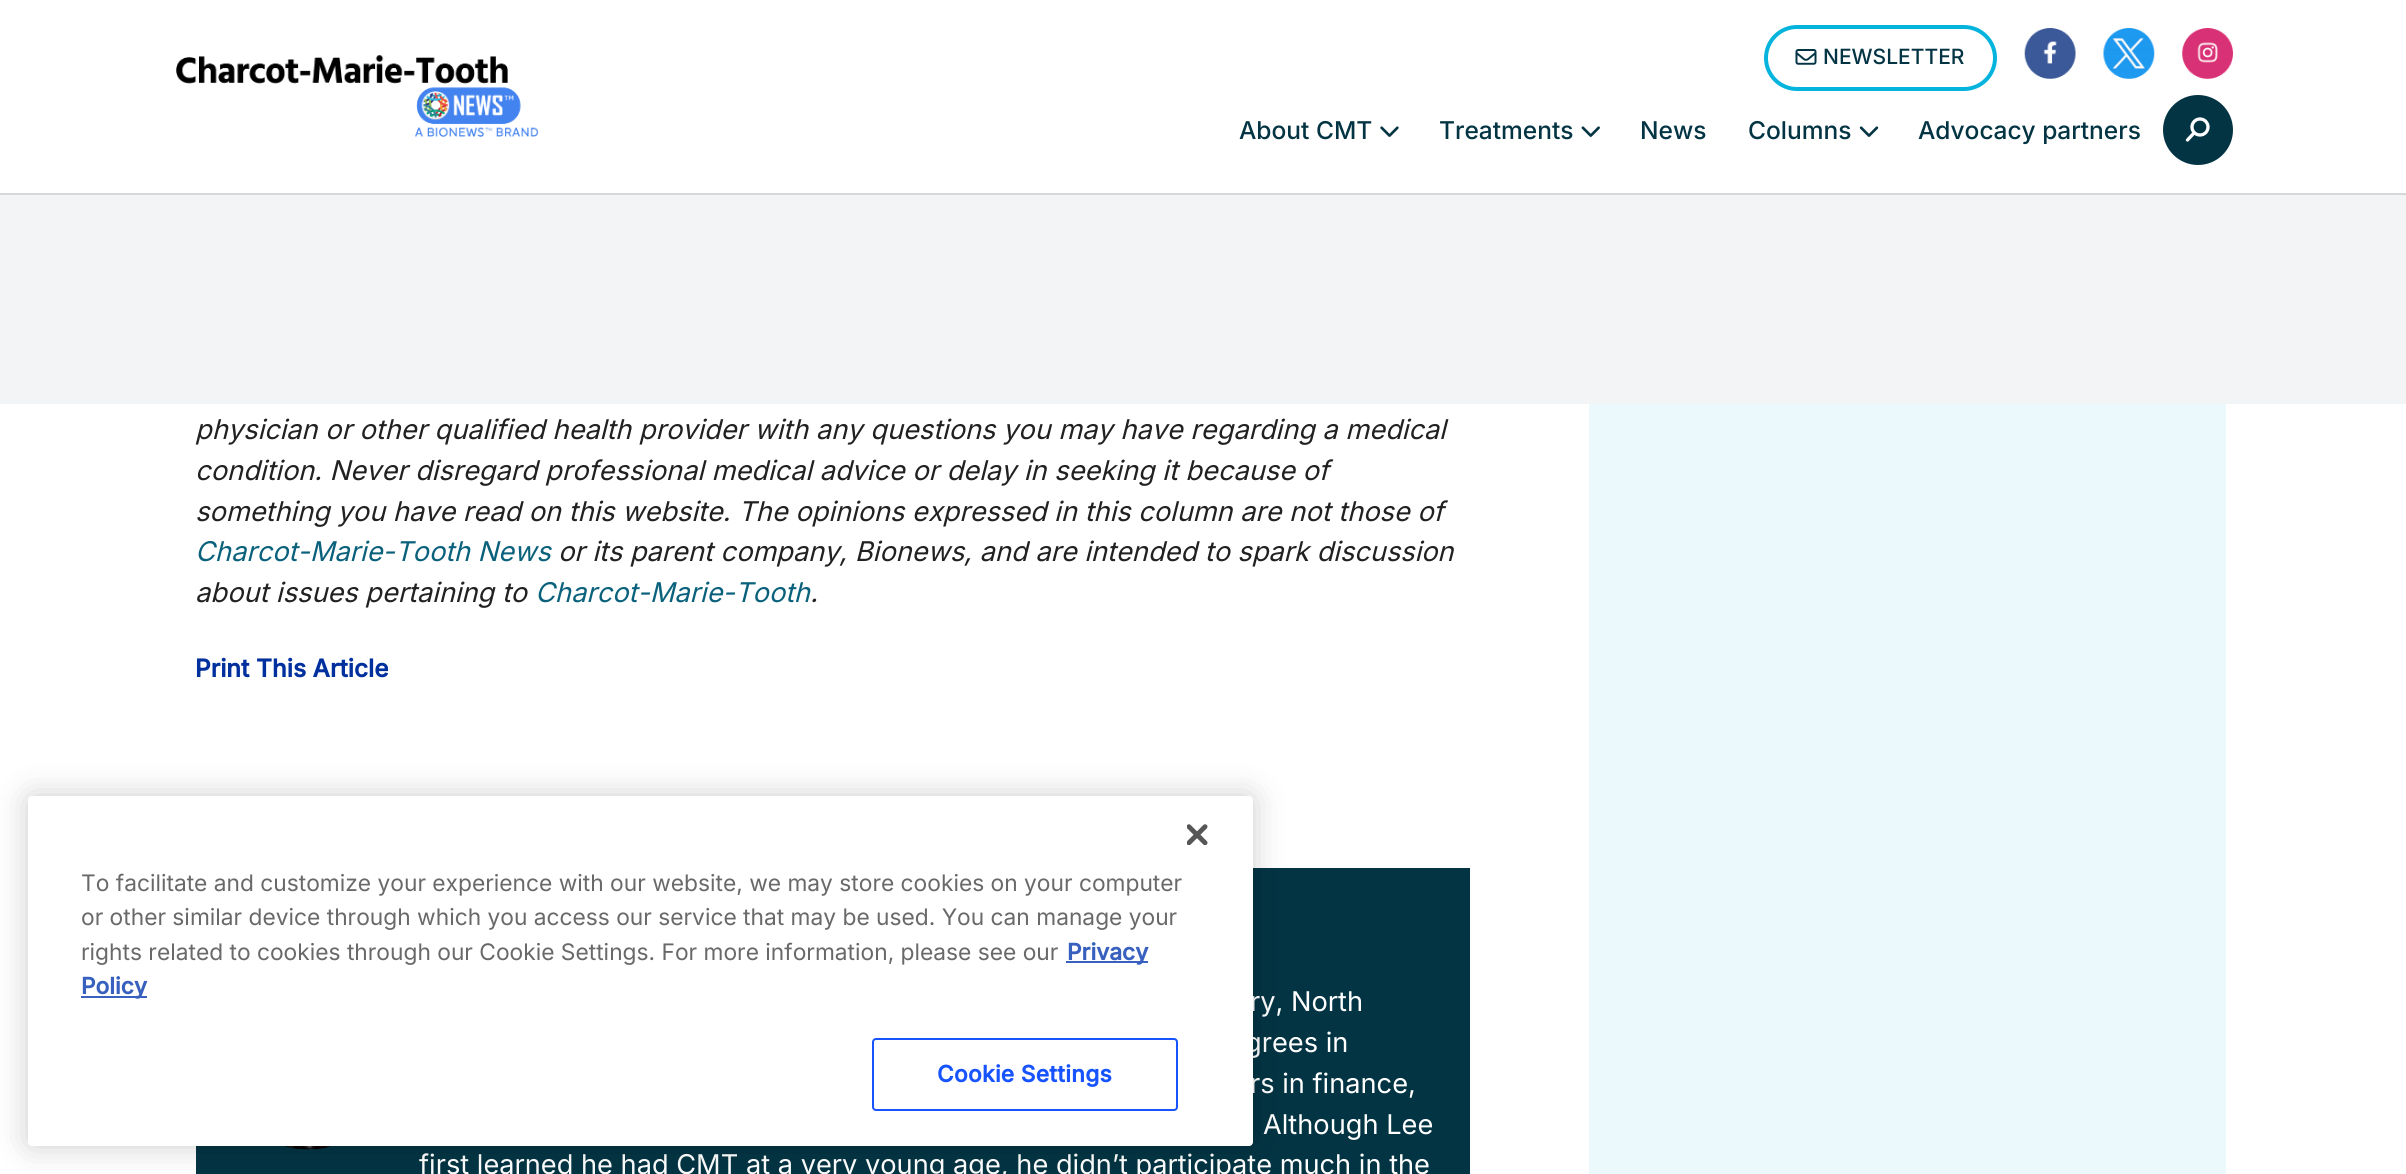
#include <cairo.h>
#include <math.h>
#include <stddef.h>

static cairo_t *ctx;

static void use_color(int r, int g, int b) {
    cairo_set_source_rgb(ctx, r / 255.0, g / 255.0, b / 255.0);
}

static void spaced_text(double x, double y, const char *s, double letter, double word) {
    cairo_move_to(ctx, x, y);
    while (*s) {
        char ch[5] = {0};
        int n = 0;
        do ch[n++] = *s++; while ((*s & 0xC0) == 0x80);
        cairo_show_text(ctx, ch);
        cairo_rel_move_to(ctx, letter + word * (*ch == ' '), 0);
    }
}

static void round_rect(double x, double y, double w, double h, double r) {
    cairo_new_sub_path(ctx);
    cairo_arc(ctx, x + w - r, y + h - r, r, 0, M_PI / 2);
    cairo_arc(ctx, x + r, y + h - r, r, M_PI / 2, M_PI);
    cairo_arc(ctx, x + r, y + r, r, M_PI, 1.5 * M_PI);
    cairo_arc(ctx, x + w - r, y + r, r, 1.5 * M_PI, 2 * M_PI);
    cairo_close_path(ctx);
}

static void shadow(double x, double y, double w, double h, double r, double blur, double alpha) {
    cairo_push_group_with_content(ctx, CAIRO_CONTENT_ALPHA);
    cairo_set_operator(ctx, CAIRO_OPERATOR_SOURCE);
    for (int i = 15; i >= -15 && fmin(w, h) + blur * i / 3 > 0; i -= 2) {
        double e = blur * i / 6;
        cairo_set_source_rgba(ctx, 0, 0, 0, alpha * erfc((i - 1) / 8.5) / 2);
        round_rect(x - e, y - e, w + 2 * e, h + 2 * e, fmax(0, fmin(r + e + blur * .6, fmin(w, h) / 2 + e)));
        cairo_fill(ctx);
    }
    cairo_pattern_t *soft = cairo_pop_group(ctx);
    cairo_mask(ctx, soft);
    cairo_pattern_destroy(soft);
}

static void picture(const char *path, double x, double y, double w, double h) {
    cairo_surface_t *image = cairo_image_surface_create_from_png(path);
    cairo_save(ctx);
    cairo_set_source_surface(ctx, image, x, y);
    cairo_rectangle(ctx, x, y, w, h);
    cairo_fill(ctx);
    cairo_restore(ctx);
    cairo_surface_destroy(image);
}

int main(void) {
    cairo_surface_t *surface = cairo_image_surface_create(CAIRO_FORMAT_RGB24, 2406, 1174);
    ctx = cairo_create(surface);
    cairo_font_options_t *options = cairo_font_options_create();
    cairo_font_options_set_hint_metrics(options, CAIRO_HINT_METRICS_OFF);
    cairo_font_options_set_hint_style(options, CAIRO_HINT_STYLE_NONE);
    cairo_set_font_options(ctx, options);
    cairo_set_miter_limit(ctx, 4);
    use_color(255, 255, 255);
    cairo_paint(ctx);
    use_color(215, 215, 215);
    cairo_rectangle(ctx, 0, 193, 2406, 2);
    cairo_fill(ctx);
    picture("img1.png", 176, 55, 363, 82);
    round_rect(1766, 27, 229, 62, 31);
    use_color(5, 180, 221);
    cairo_set_line_width(ctx, 4);
    cairo_stroke(ctx);
    picture("img2.png", 1795, 49, 22, 16);
    cairo_select_font_face(ctx, "Inter Medium", CAIRO_FONT_SLANT_NORMAL, CAIRO_FONT_WEIGHT_NORMAL);
    cairo_set_font_size(ctx, 21);
    use_color(3, 52, 67);
    cairo_move_to(ctx, 1823, 64);
    cairo_show_text(ctx, "NEWSLETTER");
    picture("img3.png", 2024, 28, 52, 51);
    picture("img4.png", 2103, 28, 52, 51);
    picture("img5.png", 2182, 28, 51, 51);
    cairo_set_font_size(ctx, 24.5);
    cairo_move_to(ctx, 1239, 139);
    cairo_show_text(ctx, "About CMT");
    picture("img6.png", 1380, 126, 19, 11);
    cairo_move_to(ctx, 1439, 139);
    cairo_show_text(ctx, "Treatments");
    picture("img7.png", 1581, 126, 19, 11);
    cairo_move_to(ctx, 1640, 139);
    cairo_show_text(ctx, "News");
    cairo_move_to(ctx, 1748, 139);
    cairo_show_text(ctx, "Columns");
    picture("img8.png", 1859, 126, 20, 11);
    cairo_move_to(ctx, 1918, 139);
    cairo_show_text(ctx, "Advocacy partners");
    cairo_new_path(ctx);
    cairo_arc(ctx, 2198, 130, 35, 0, 2 * M_PI);
    cairo_fill(ctx);
    cairo_arc(ctx, 2200, 127, 8, 0, 2 * M_PI);
    use_color(255, 255, 255);
    cairo_set_line_width(ctx, 3.3);
    cairo_stroke(ctx);
    cairo_new_path(ctx);
    cairo_move_to(ctx, 2193.5, 133.5);
    cairo_line_to(ctx, 2187.5, 140);
    cairo_set_line_cap(ctx, CAIRO_LINE_CAP_ROUND);
    cairo_stroke(ctx);
    use_color(243, 244, 246);
    cairo_rectangle(ctx, 0, 195, 2406, 209);
    cairo_fill(ctx);
    cairo_select_font_face(ctx, "Inter", CAIRO_FONT_SLANT_ITALIC, CAIRO_FONT_WEIGHT_NORMAL);
    cairo_set_font_size(ctx, 27.2);
    use_color(33, 33, 33);
    cairo_move_to(ctx, 195, 439);
    cairo_show_text(ctx, "physician or other qualified health provider with any questions you may have regarding a medical");
    cairo_move_to(ctx, 195, 480);
    cairo_show_text(ctx, "condition. Never disregard professional medical advice or delay in seeking it because of");
    cairo_move_to(ctx, 195, 521);
    cairo_show_text(ctx, "something you have read on this website. The opinions expressed in this column are not those of");
    use_color(10, 97, 124);
    cairo_move_to(ctx, 195, 561);
    cairo_show_text(ctx, "Charcot-Marie-Tooth News");
    use_color(33, 33, 33);
    cairo_move_to(ctx, 558, 561);
    cairo_show_text(ctx, "or its parent company, Bionews, and are intended to spark discussion");
    cairo_move_to(ctx, 195, 602);
    cairo_show_text(ctx, "about issues pertaining to");
    use_color(10, 97, 124);
    cairo_move_to(ctx, 535, 602);
    cairo_show_text(ctx, "Charcot-Marie-Tooth");
    use_color(33, 33, 33);
    cairo_move_to(ctx, 810, 602);
    cairo_show_text(ctx, ".");
    cairo_select_font_face(ctx, "Inter", CAIRO_FONT_SLANT_NORMAL, CAIRO_FONT_WEIGHT_BOLD);
    cairo_set_font_size(ctx, 24.5);
    use_color(0, 47, 158);
    cairo_move_to(ctx, 195, 677);
    cairo_show_text(ctx, "Print This Article");
    use_color(3, 52, 67);
    cairo_rectangle(ctx, 196, 868, 1274, 306);
    cairo_fill(ctx);
    picture("img9.png", 284, 1146, 48, 4);
    cairo_select_font_face(ctx, "Inter", CAIRO_FONT_SLANT_NORMAL, CAIRO_FONT_WEIGHT_NORMAL);
    cairo_set_font_size(ctx, 27.2);
    use_color(255, 255, 255);
    cairo_move_to(ctx, 1250, 1011);
    cairo_show_text(ctx, "ry, North");
    cairo_move_to(ctx, 1245, 1052);
    cairo_show_text(ctx, "grees in");
    cairo_move_to(ctx, 1250, 1093);
    cairo_show_text(ctx, "rs in finance,");
    cairo_move_to(ctx, 1263, 1134);
    cairo_show_text(ctx, "Although Lee");
    cairo_move_to(ctx, 419, 1174);
    cairo_show_text(ctx, "first learned he had CMT at a very young age, he didn’t participate much in the");
    use_color(235, 248, 252);
    cairo_rectangle(ctx, 1589, 404, 637, 770);
    cairo_fill(ctx);
    use_color(0, 0, 0);
    shadow(28, 796, 1225, 350, 4, 16, 0.2);
    use_color(255, 255, 255);
    round_rect(28, 796, 1225, 350, 4);
    cairo_fill(ctx);
    picture("img10.png", 1187, 824, 21, 21);
    cairo_set_font_size(ctx, 22.75);
    use_color(105, 105, 105);
    cairo_move_to(ctx, 81, 891);
    cairo_show_text(ctx, "To facilitate and customize your experience with our website, we may store cookies on your computer");
    cairo_move_to(ctx, 81, 925);
    cairo_show_text(ctx, "or other similar device through which you access our service that may be used. You can manage your");
    cairo_move_to(ctx, 81, 960);
    cairo_show_text(ctx, "rights related to cookies through our Cookie Settings. For more information, please see our");
    use_color(56, 96, 190);
    cairo_rectangle(ctx, 1066, 961, 82, 2);
    cairo_fill(ctx);
    cairo_select_font_face(ctx, "Inter", CAIRO_FONT_SLANT_NORMAL, CAIRO_FONT_WEIGHT_BOLD);
    cairo_move_to(ctx, 1067, 960);
    cairo_show_text(ctx, "Privacy");
    cairo_rectangle(ctx, 81, 996, 66, 2);
    cairo_fill(ctx);
    cairo_move_to(ctx, 81, 994);
    cairo_show_text(ctx, "Policy");
    round_rect(873, 1039, 304, 71, 3);
    use_color(23, 84, 255);
    cairo_set_line_width(ctx, 2);
    cairo_set_line_cap(ctx, CAIRO_LINE_CAP_BUTT);
    cairo_stroke(ctx);
    spaced_text(937, 1082, "Cookie Settings", 0.25, 0);
    cairo_surface_write_to_png(surface, "result.png");
    cairo_font_options_destroy(options);
    cairo_destroy(ctx);
    cairo_surface_destroy(surface);
    return 0;
}
